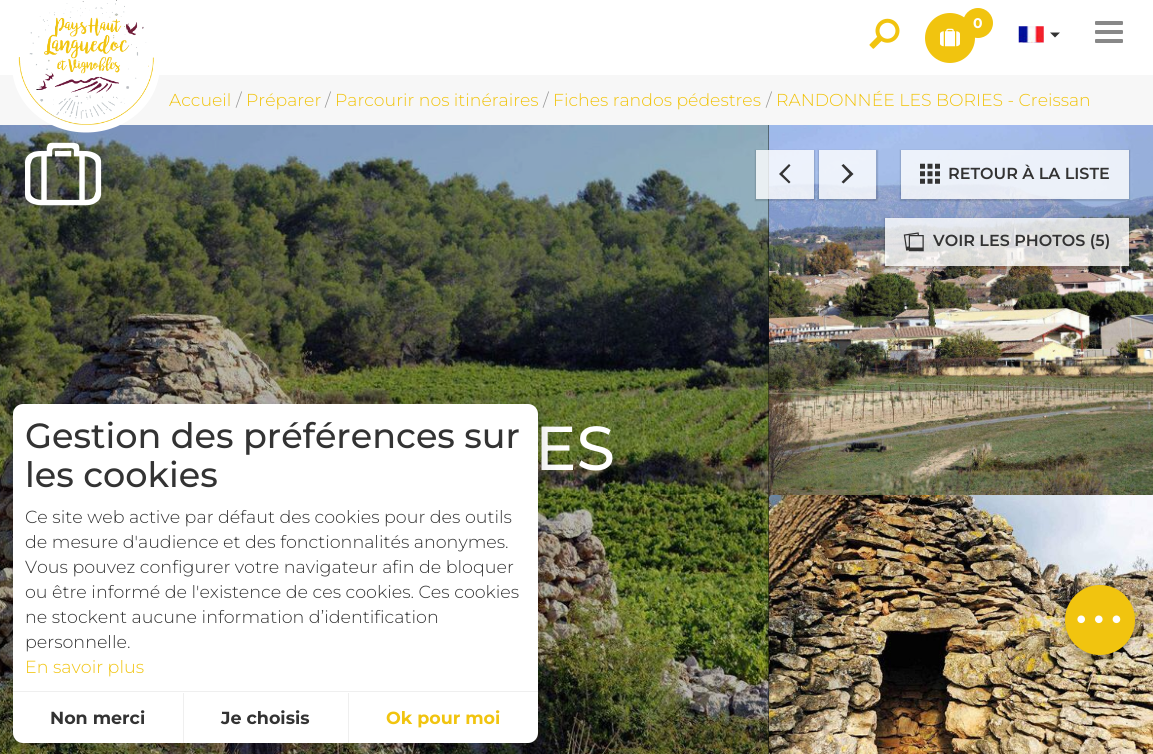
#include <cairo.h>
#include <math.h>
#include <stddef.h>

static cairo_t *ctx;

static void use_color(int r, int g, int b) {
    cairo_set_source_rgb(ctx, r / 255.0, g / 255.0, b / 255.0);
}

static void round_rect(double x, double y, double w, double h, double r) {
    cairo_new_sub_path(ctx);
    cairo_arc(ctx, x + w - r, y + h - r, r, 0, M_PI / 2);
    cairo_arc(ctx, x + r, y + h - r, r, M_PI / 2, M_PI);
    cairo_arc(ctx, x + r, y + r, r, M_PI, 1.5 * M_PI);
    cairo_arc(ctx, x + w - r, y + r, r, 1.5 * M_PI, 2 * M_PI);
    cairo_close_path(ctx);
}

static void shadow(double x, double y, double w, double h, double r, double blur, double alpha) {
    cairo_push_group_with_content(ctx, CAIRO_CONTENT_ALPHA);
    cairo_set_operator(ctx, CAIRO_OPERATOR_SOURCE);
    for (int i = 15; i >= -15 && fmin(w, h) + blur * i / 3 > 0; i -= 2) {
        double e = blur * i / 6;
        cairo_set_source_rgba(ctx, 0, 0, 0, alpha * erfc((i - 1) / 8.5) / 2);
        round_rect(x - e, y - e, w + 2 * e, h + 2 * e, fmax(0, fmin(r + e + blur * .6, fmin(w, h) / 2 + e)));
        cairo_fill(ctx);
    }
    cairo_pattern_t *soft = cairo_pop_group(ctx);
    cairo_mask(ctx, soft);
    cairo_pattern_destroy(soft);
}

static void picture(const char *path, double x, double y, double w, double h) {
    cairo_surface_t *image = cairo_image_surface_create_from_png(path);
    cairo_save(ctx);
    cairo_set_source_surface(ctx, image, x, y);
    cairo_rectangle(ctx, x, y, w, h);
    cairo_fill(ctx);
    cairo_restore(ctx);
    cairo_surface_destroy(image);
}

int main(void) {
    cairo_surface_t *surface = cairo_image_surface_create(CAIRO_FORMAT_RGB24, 1153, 754);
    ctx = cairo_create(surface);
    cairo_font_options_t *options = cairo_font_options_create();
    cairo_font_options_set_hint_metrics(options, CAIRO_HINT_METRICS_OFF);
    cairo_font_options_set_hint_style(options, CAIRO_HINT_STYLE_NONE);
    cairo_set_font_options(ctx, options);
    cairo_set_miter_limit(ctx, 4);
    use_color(255, 255, 255);
    cairo_paint(ctx);
    use_color(247, 247, 247);
    cairo_rectangle(ctx, 0, 75, 1153, 50);
    cairo_fill(ctx);
    use_color(0, 0, 0);
    cairo_rectangle(ctx, 0, 125, 769, 629);
    cairo_fill(ctx);
    picture("img5.png", 0, 125, 769, 629);
    use_color(255, 255, 255);
    cairo_new_path(ctx);
    cairo_move_to(ctx, 86, -2.5);
    cairo_curve_to(ctx, 127, -2.5, 160, 27.5, 160, 65);
    cairo_curve_to(ctx, 160, 102.5, 127, 132.5, 86, 132.5);
    cairo_curve_to(ctx, 45, 132.5, 12, 102.5, 12, 65);
    cairo_curve_to(ctx, 12, 27.5, 45, -2.5, 86, -2.5);
    cairo_close_path(ctx);
    cairo_fill(ctx);
    picture("img1.png", 18, 0, 136, 125);
    picture("img2.png", 869, 18, 31, 31);
    use_color(241, 196, 15);
    cairo_arc(ctx, 950, 38, 25, 0, 2 * M_PI);
    cairo_fill(ctx);
    picture("img3.png", 940, 28, 20, 19);
    cairo_arc(ctx, 978, 23, 15, 0, 2 * M_PI);
    cairo_fill(ctx);
    cairo_select_font_face(ctx, "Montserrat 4 Thin", CAIRO_FONT_SLANT_NORMAL, CAIRO_FONT_WEIGHT_NORMAL);
    cairo_set_font_size(ctx, 14);
    use_color(255, 255, 255);
    cairo_move_to(ctx, 973, 28);
    cairo_show_text(ctx, "0");
    picture("img4.png", 1018, 26, 26, 17);
    use_color(51, 51, 51);
    cairo_new_path(ctx);
    cairo_move_to(ctx, 1050, 32.5);
    cairo_line_to(ctx, 1060, 32.5);
    cairo_line_to(ctx, 1055, 37.5);
    cairo_close_path(ctx);
    cairo_fill(ctx);
    use_color(136, 136, 136);
    round_rect(1095, 21, 28, 4, 1);
    cairo_fill(ctx);
    round_rect(1095, 30, 28, 4, 1);
    cairo_fill(ctx);
    round_rect(1095, 39, 28, 4, 1);
    cairo_fill(ctx);
    cairo_select_font_face(ctx, "Montserrat Thin", CAIRO_FONT_SLANT_NORMAL, CAIRO_FONT_WEIGHT_NORMAL);
    cairo_set_font_size(ctx, 17.3);
    use_color(241, 196, 15);
    cairo_move_to(ctx, 169, 106);
    cairo_show_text(ctx, "Accueil");
    use_color(148, 148, 148);
    cairo_move_to(ctx, 236, 106);
    cairo_show_text(ctx, "/");
    use_color(241, 196, 15);
    cairo_move_to(ctx, 246, 106);
    cairo_show_text(ctx, "Préparer");
    use_color(148, 148, 148);
    cairo_move_to(ctx, 325, 106);
    cairo_show_text(ctx, "/");
    use_color(241, 196, 15);
    cairo_move_to(ctx, 335, 106);
    cairo_show_text(ctx, "Parcourir nos itinéraires");
    use_color(148, 148, 148);
    cairo_move_to(ctx, 543, 106);
    cairo_show_text(ctx, "/");
    use_color(241, 196, 15);
    cairo_move_to(ctx, 553, 106);
    cairo_show_text(ctx, "Fiches randos pédestres");
    use_color(148, 148, 148);
    cairo_move_to(ctx, 766, 106);
    cairo_show_text(ctx, "/");
    use_color(241, 196, 15);
    cairo_move_to(ctx, 776, 106);
    cairo_show_text(ctx, "RANDONNÉE LES BORIES - Creissan");
    picture("img6.png", 768, 125, 385, 370);
    picture("img7.png", 768, 495, 385, 259);
    picture("img8.png", 25, 142, 77, 64);
    cairo_save(ctx);
    cairo_set_fill_rule(ctx, CAIRO_FILL_RULE_EVEN_ODD);
    cairo_new_path(ctx);
    cairo_move_to(ctx, 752, 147);
    cairo_line_to(ctx, 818, 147);
    cairo_line_to(ctx, 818, 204);
    cairo_line_to(ctx, 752, 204);
    cairo_close_path(ctx);
    cairo_move_to(ctx, 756, 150);
    cairo_line_to(ctx, 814, 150);
    cairo_line_to(ctx, 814, 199);
    cairo_line_to(ctx, 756, 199);
    cairo_close_path(ctx);
    cairo_clip(ctx);
    use_color(0, 0, 0);
    shadow(755, 150, 60, 51, 0, 0.5, 0.14);
    cairo_restore(ctx);
    cairo_set_source_rgba(ctx, 1, 1, 1, 0.8);
    cairo_rectangle(ctx, 756, 150, 58, 49);
    cairo_fill(ctx);
    use_color(51, 51, 51);
    cairo_new_path(ctx);
    cairo_move_to(ctx, 790.5, 165.5);
    cairo_line_to(ctx, 789, 164);
    cairo_line_to(ctx, 779, 174);
    cairo_line_to(ctx, 789, 183.5);
    cairo_line_to(ctx, 790.5, 182);
    cairo_line_to(ctx, 782.5, 174);
    cairo_close_path(ctx);
    cairo_fill(ctx);
    cairo_save(ctx);
    cairo_set_fill_rule(ctx, CAIRO_FILL_RULE_EVEN_ODD);
    cairo_new_path(ctx);
    cairo_move_to(ctx, 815, 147);
    cairo_line_to(ctx, 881, 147);
    cairo_line_to(ctx, 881, 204);
    cairo_line_to(ctx, 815, 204);
    cairo_close_path(ctx);
    cairo_move_to(ctx, 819, 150);
    cairo_line_to(ctx, 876, 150);
    cairo_line_to(ctx, 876, 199);
    cairo_line_to(ctx, 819, 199);
    cairo_close_path(ctx);
    cairo_clip(ctx);
    use_color(0, 0, 0);
    shadow(818, 150, 60, 51, 0, 0.5, 0.14);
    cairo_restore(ctx);
    cairo_set_source_rgba(ctx, 1, 1, 1, 0.8);
    cairo_rectangle(ctx, 819, 150, 57, 49);
    cairo_fill(ctx);
    use_color(51, 51, 51);
    cairo_new_path(ctx);
    cairo_move_to(ctx, 841.5, 165.5);
    cairo_line_to(ctx, 843.5, 164);
    cairo_line_to(ctx, 853.5, 174);
    cairo_line_to(ctx, 843.5, 183.5);
    cairo_line_to(ctx, 841.5, 182);
    cairo_line_to(ctx, 849.5, 174);
    cairo_close_path(ctx);
    cairo_fill(ctx);
    cairo_save(ctx);
    cairo_set_fill_rule(ctx, CAIRO_FILL_RULE_EVEN_ODD);
    cairo_new_path(ctx);
    cairo_move_to(ctx, 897, 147);
    cairo_line_to(ctx, 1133, 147);
    cairo_line_to(ctx, 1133, 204);
    cairo_line_to(ctx, 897, 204);
    cairo_close_path(ctx);
    cairo_move_to(ctx, 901, 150);
    cairo_line_to(ctx, 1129, 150);
    cairo_line_to(ctx, 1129, 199);
    cairo_line_to(ctx, 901, 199);
    cairo_close_path(ctx);
    cairo_clip(ctx);
    use_color(0, 0, 0);
    shadow(900, 150, 230, 51, 0, 0.5, 0.14);
    cairo_restore(ctx);
    cairo_set_source_rgba(ctx, 1, 1, 1, 0.8);
    cairo_rectangle(ctx, 901, 150, 228, 49);
    cairo_fill(ctx);
    picture("img9.png", 920, 163, 20, 21);
    cairo_select_font_face(ctx, "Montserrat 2 Thin", CAIRO_FONT_SLANT_NORMAL, CAIRO_FONT_WEIGHT_NORMAL);
    cairo_set_font_size(ctx, 16);
    use_color(51, 51, 51);
    cairo_move_to(ctx, 948, 179);
    cairo_show_text(ctx, "RETOUR À LA LISTE");
    cairo_save(ctx);
    cairo_set_fill_rule(ctx, CAIRO_FILL_RULE_EVEN_ODD);
    cairo_new_path(ctx);
    cairo_move_to(ctx, 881, 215);
    cairo_line_to(ctx, 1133, 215);
    cairo_line_to(ctx, 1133, 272);
    cairo_line_to(ctx, 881, 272);
    cairo_close_path(ctx);
    cairo_move_to(ctx, 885, 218);
    cairo_line_to(ctx, 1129, 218);
    cairo_line_to(ctx, 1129, 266);
    cairo_line_to(ctx, 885, 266);
    cairo_close_path(ctx);
    cairo_clip(ctx);
    use_color(0, 0, 0);
    shadow(884, 218, 246, 51, 0, 0.5, 0.14);
    cairo_restore(ctx);
    cairo_set_source_rgba(ctx, 1, 1, 1, 0.8);
    cairo_rectangle(ctx, 885, 218, 244, 48);
    cairo_fill(ctx);
    picture("img10.png", 903, 232, 21, 20);
    use_color(51, 51, 51);
    cairo_move_to(ctx, 933, 246);
    cairo_show_text(ctx, "VOIR LES PHOTOS (5)");
    cairo_select_font_face(ctx, "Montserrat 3 Thin", CAIRO_FONT_SLANT_NORMAL, CAIRO_FONT_WEIGHT_NORMAL);
    cairo_set_font_size(ctx, 62);
    use_color(255, 255, 255);
    cairo_move_to(ctx, 535, 470);
    cairo_show_text(ctx, "ES");
    use_color(0, 0, 0);
    shadow(1066, 590, 68, 68, 34, 3, 0.3);
    shadow(1065, 586, 70, 70, 35, 11, 0.06);
    cairo_select_font_face(ctx, "Montserrat Thin", CAIRO_FONT_SLANT_NORMAL, CAIRO_FONT_WEIGHT_NORMAL);
    cairo_set_font_size(ctx, 12);
    use_color(84, 75, 64);
    cairo_move_to(ctx, 1047, 601);
    cairo_show_text(ctx, "Téléc");
    use_color(241, 196, 15);
    cairo_new_path(ctx);
    cairo_arc(ctx, 1100, 620, 35, 0, 2 * M_PI);
    cairo_fill(ctx);
    picture("img11.png", 1077, 615, 44, 9);
    use_color(0, 0, 0);
    shadow(13, 409, 525, 339, 10, 15, 0.15);
    use_color(255, 255, 255);
    round_rect(13, 404, 525, 339, 10);
    cairo_fill(ctx);
    cairo_select_font_face(ctx, "Montserrat 3 Thin", CAIRO_FONT_SLANT_NORMAL, CAIRO_FONT_WEIGHT_NORMAL);
    cairo_set_font_size(ctx, 35);
    use_color(51, 51, 51);
    cairo_move_to(ctx, 25, 448);
    cairo_show_text(ctx, "Gestion des préférences sur");
    cairo_move_to(ctx, 25, 487);
    cairo_show_text(ctx, "les cookies");
    cairo_select_font_face(ctx, "Montserrat Thin", CAIRO_FONT_SLANT_NORMAL, CAIRO_FONT_WEIGHT_NORMAL);
    cairo_set_font_size(ctx, 17.5);
    cairo_move_to(ctx, 25, 523);
    cairo_show_text(ctx, "Ce site web active par défaut des cookies pour des outils");
    cairo_move_to(ctx, 25, 548);
    cairo_show_text(ctx, "de mesure d'audience et des fonctionnalités anonymes.");
    cairo_move_to(ctx, 25, 573);
    cairo_show_text(ctx, "Vous pouvez configurer votre navigateur afin de bloquer");
    cairo_move_to(ctx, 25, 598);
    cairo_show_text(ctx, "ou être informé de l'existence de ces cookies. Ces cookies");
    cairo_move_to(ctx, 25, 623);
    cairo_show_text(ctx, "ne stockent aucune information d’identification");
    cairo_move_to(ctx, 25, 648);
    cairo_show_text(ctx, "personnelle.");
    use_color(241, 196, 15);
    cairo_move_to(ctx, 25, 673);
    cairo_show_text(ctx, "En savoir plus");
    use_color(239, 239, 239);
    cairo_rectangle(ctx, 13, 691, 525, 1);
    cairo_fill(ctx);
    cairo_rectangle(ctx, 183, 693, 1, 50);
    cairo_fill(ctx);
    cairo_select_font_face(ctx, "Montserrat 4 Thin", CAIRO_FONT_SLANT_NORMAL, CAIRO_FONT_WEIGHT_NORMAL);
    use_color(51, 51, 51);
    cairo_move_to(ctx, 50, 724);
    cairo_show_text(ctx, "Non merci");
    use_color(239, 239, 239);
    cairo_rectangle(ctx, 348, 693, 1, 50);
    cairo_fill(ctx);
    use_color(51, 51, 51);
    cairo_move_to(ctx, 221, 724);
    cairo_show_text(ctx, "Je choisis");
    use_color(241, 196, 15);
    cairo_move_to(ctx, 386, 724);
    cairo_show_text(ctx, "Ok pour moi");
    cairo_surface_write_to_png(surface, "result.png");
    cairo_font_options_destroy(options);
    cairo_destroy(ctx);
    cairo_surface_destroy(surface);
    return 0;
}
